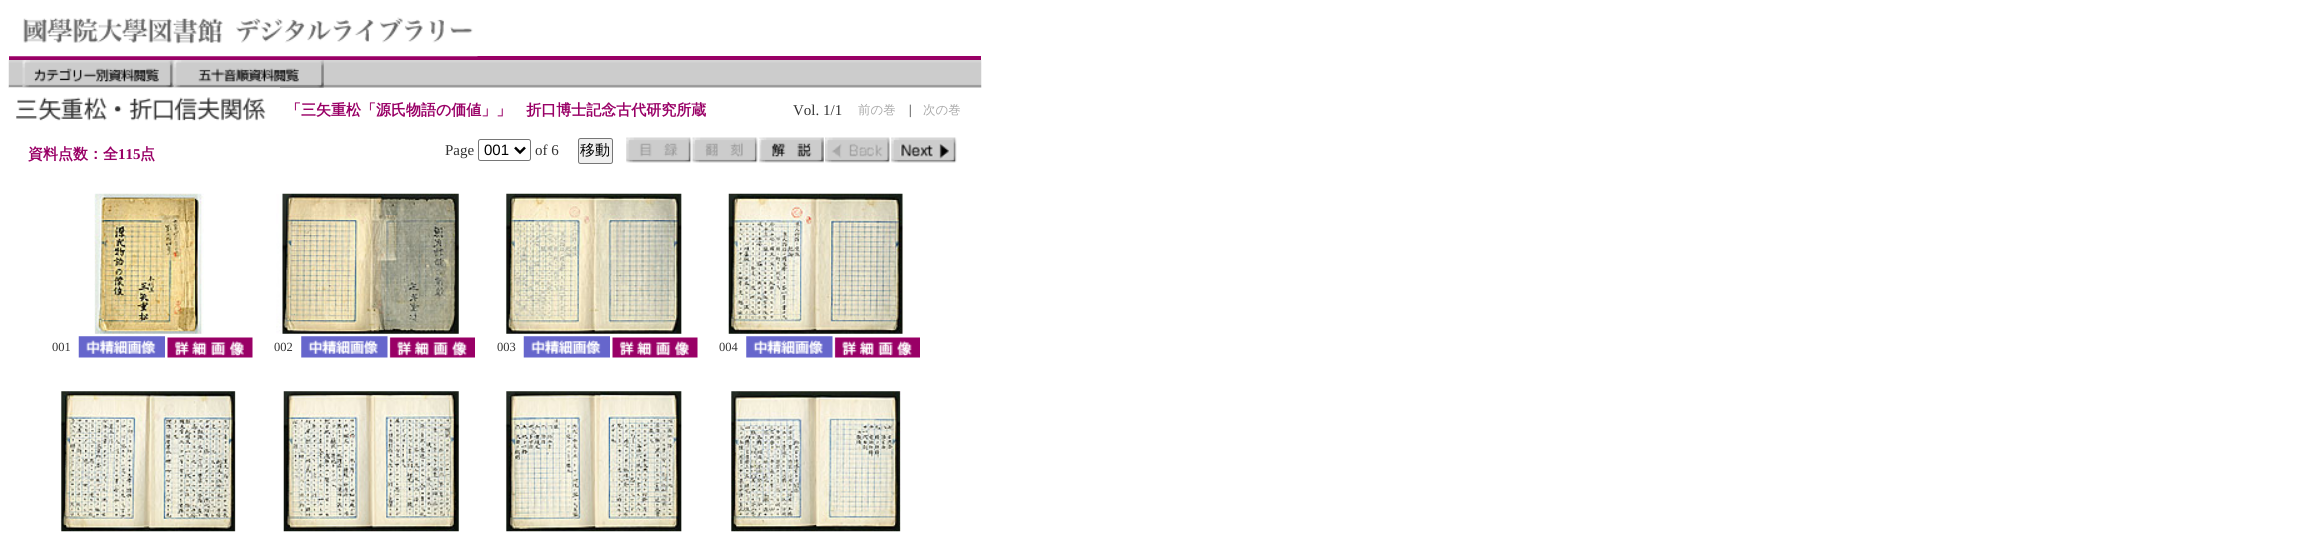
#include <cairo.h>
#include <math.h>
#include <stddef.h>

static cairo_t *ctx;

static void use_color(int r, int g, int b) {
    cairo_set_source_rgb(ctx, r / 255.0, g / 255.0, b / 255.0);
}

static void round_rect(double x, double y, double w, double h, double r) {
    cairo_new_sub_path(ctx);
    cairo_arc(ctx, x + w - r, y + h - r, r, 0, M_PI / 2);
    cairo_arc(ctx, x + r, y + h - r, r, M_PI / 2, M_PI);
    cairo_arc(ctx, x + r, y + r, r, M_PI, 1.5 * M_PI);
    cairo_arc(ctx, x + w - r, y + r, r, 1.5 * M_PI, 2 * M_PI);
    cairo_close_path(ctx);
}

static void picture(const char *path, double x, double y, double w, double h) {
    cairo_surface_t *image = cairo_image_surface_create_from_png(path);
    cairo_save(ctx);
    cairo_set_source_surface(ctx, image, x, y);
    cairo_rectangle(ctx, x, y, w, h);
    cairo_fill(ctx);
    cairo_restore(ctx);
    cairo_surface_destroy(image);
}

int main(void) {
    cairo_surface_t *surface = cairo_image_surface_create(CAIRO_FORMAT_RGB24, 2309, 533);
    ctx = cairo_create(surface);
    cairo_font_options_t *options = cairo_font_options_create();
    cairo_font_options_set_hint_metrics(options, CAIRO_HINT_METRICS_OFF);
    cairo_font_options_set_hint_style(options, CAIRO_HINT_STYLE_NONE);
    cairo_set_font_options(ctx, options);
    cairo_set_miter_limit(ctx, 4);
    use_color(255, 255, 255);
    cairo_paint(ctx);
    use_color(153, 0, 102);
    cairo_rectangle(ctx, 9, 56, 972, 4);
    cairo_fill(ctx);
    picture("img1.png", 9, 17, 469, 40);
    picture("img2.png", 8, 60, 974, 28);
    picture("img3.png", 22, 60, 151, 28);
    picture("img4.png", 173, 60, 151, 28);
    picture("img5.png", 9, 87, 271, 34);
    cairo_select_font_face(ctx, "WenQuanYi Zen Hei", CAIRO_FONT_SLANT_NORMAL, CAIRO_FONT_WEIGHT_BOLD);
    cairo_set_font_size(ctx, 15);
    cairo_move_to(ctx, 286, 115);
    cairo_show_text(ctx, "「三矢重松「源氏物語の価値」」　折口博士記念古代研究所蔵");
    cairo_select_font_face(ctx, "Liberation Serif", CAIRO_FONT_SLANT_NORMAL, CAIRO_FONT_WEIGHT_NORMAL);
    use_color(51, 51, 51);
    cairo_move_to(ctx, 793, 115);
    cairo_show_text(ctx, "Vol. 1/1");
    cairo_select_font_face(ctx, "WenQuanYi Zen Hei Medium", CAIRO_FONT_SLANT_NORMAL, CAIRO_FONT_WEIGHT_NORMAL);
    cairo_set_font_size(ctx, 12.5);
    use_color(170, 170, 170);
    cairo_move_to(ctx, 858, 114);
    cairo_show_text(ctx, "前の巻");
    use_color(51, 51, 51);
    cairo_move_to(ctx, 904, 114);
    cairo_show_text(ctx, "｜");
    use_color(170, 170, 170);
    cairo_move_to(ctx, 923, 114);
    cairo_show_text(ctx, "次の巻");
    cairo_select_font_face(ctx, "WenQuanYi Zen Hei", CAIRO_FONT_SLANT_NORMAL, CAIRO_FONT_WEIGHT_BOLD);
    cairo_set_font_size(ctx, 15);
    use_color(153, 0, 102);
    cairo_move_to(ctx, 28, 159);
    cairo_show_text(ctx, "資料点数：全");
    cairo_select_font_face(ctx, "Liberation Serif", CAIRO_FONT_SLANT_NORMAL, CAIRO_FONT_WEIGHT_BOLD);
    cairo_move_to(ctx, 118, 159);
    cairo_show_text(ctx, "115");
    cairo_select_font_face(ctx, "WenQuanYi Zen Hei", CAIRO_FONT_SLANT_NORMAL, CAIRO_FONT_WEIGHT_BOLD);
    cairo_move_to(ctx, 140, 159);
    cairo_show_text(ctx, "点");
    cairo_select_font_face(ctx, "Liberation Serif", CAIRO_FONT_SLANT_NORMAL, CAIRO_FONT_WEIGHT_NORMAL);
    use_color(51, 51, 51);
    cairo_move_to(ctx, 445, 155);
    cairo_show_text(ctx, "Page");
    round_rect(478.5, 139.5, 52, 21, 2);
    use_color(118, 118, 118);
    cairo_set_line_width(ctx, 1);
    cairo_stroke(ctx);
    cairo_new_path(ctx);
    cairo_move_to(ctx, 515, 147.5);
    cairo_line_to(ctx, 520, 152.5);
    cairo_line_to(ctx, 525, 147.5);
    use_color(0, 0, 0);
    cairo_set_line_width(ctx, 2.5);
    cairo_stroke(ctx);
    cairo_select_font_face(ctx, "Liberation Sans", CAIRO_FONT_SLANT_NORMAL, CAIRO_FONT_WEIGHT_NORMAL);
    cairo_move_to(ctx, 484, 155);
    cairo_show_text(ctx, "001");
    cairo_select_font_face(ctx, "Liberation Serif", CAIRO_FONT_SLANT_NORMAL, CAIRO_FONT_WEIGHT_NORMAL);
    use_color(51, 51, 51);
    cairo_move_to(ctx, 535, 155);
    cairo_show_text(ctx, "of 6");
    use_color(239, 239, 239);
    round_rect(578.5, 138.5, 34, 25, 2);
    cairo_fill_preserve(ctx);
    use_color(118, 118, 118);
    cairo_set_line_width(ctx, 1);
    cairo_stroke(ctx);
    cairo_select_font_face(ctx, "WenQuanYi Zen Hei Medium", CAIRO_FONT_SLANT_NORMAL, CAIRO_FONT_WEIGHT_NORMAL);
    use_color(0, 0, 0);
    cairo_move_to(ctx, 580, 155);
    cairo_show_text(ctx, "移動");
    picture("img6.png", 626, 137, 66, 26);
    picture("img7.png", 692, 137, 66, 26);
    picture("img8.png", 758, 137, 66, 26);
    picture("img9.png", 825, 137, 65, 26);
    picture("img10.png", 891, 137, 66, 26);
    picture("img11.png", 94, 193, 110, 141);
    cairo_select_font_face(ctx, "Liberation Serif", CAIRO_FONT_SLANT_NORMAL, CAIRO_FONT_WEIGHT_NORMAL);
    cairo_set_font_size(ctx, 12.5);
    use_color(51, 51, 51);
    cairo_move_to(ctx, 52, 351);
    cairo_show_text(ctx, "001");
    picture("img12.png", 78, 336, 87, 22);
    picture("img13.png", 167, 337, 86, 21);
    picture("img14.png", 276, 193, 184, 141);
    cairo_move_to(ctx, 274, 351);
    cairo_show_text(ctx, "002");
    picture("img15.png", 301, 336, 87, 22);
    picture("img16.png", 389, 337, 86, 21);
    picture("img17.png", 505, 193, 177, 141);
    cairo_move_to(ctx, 497, 351);
    cairo_show_text(ctx, "003");
    picture("img18.png", 523, 336, 87, 22);
    picture("img13.png", 612, 337, 86, 21);
    picture("img19.png", 727, 193, 177, 141);
    cairo_move_to(ctx, 719, 351);
    cairo_show_text(ctx, "004");
    picture("img15.png", 746, 336, 87, 22);
    picture("img16.png", 834, 337, 86, 21);
    picture("img20.png", 60, 391, 176, 141);
    picture("img21.png", 283, 391, 177, 141);
    picture("img22.png", 505, 391, 177, 141);
    picture("img23.png", 731, 391, 170, 141);
    cairo_surface_write_to_png(surface, "result.png");
    cairo_font_options_destroy(options);
    cairo_destroy(ctx);
    cairo_surface_destroy(surface);
    return 0;
}
